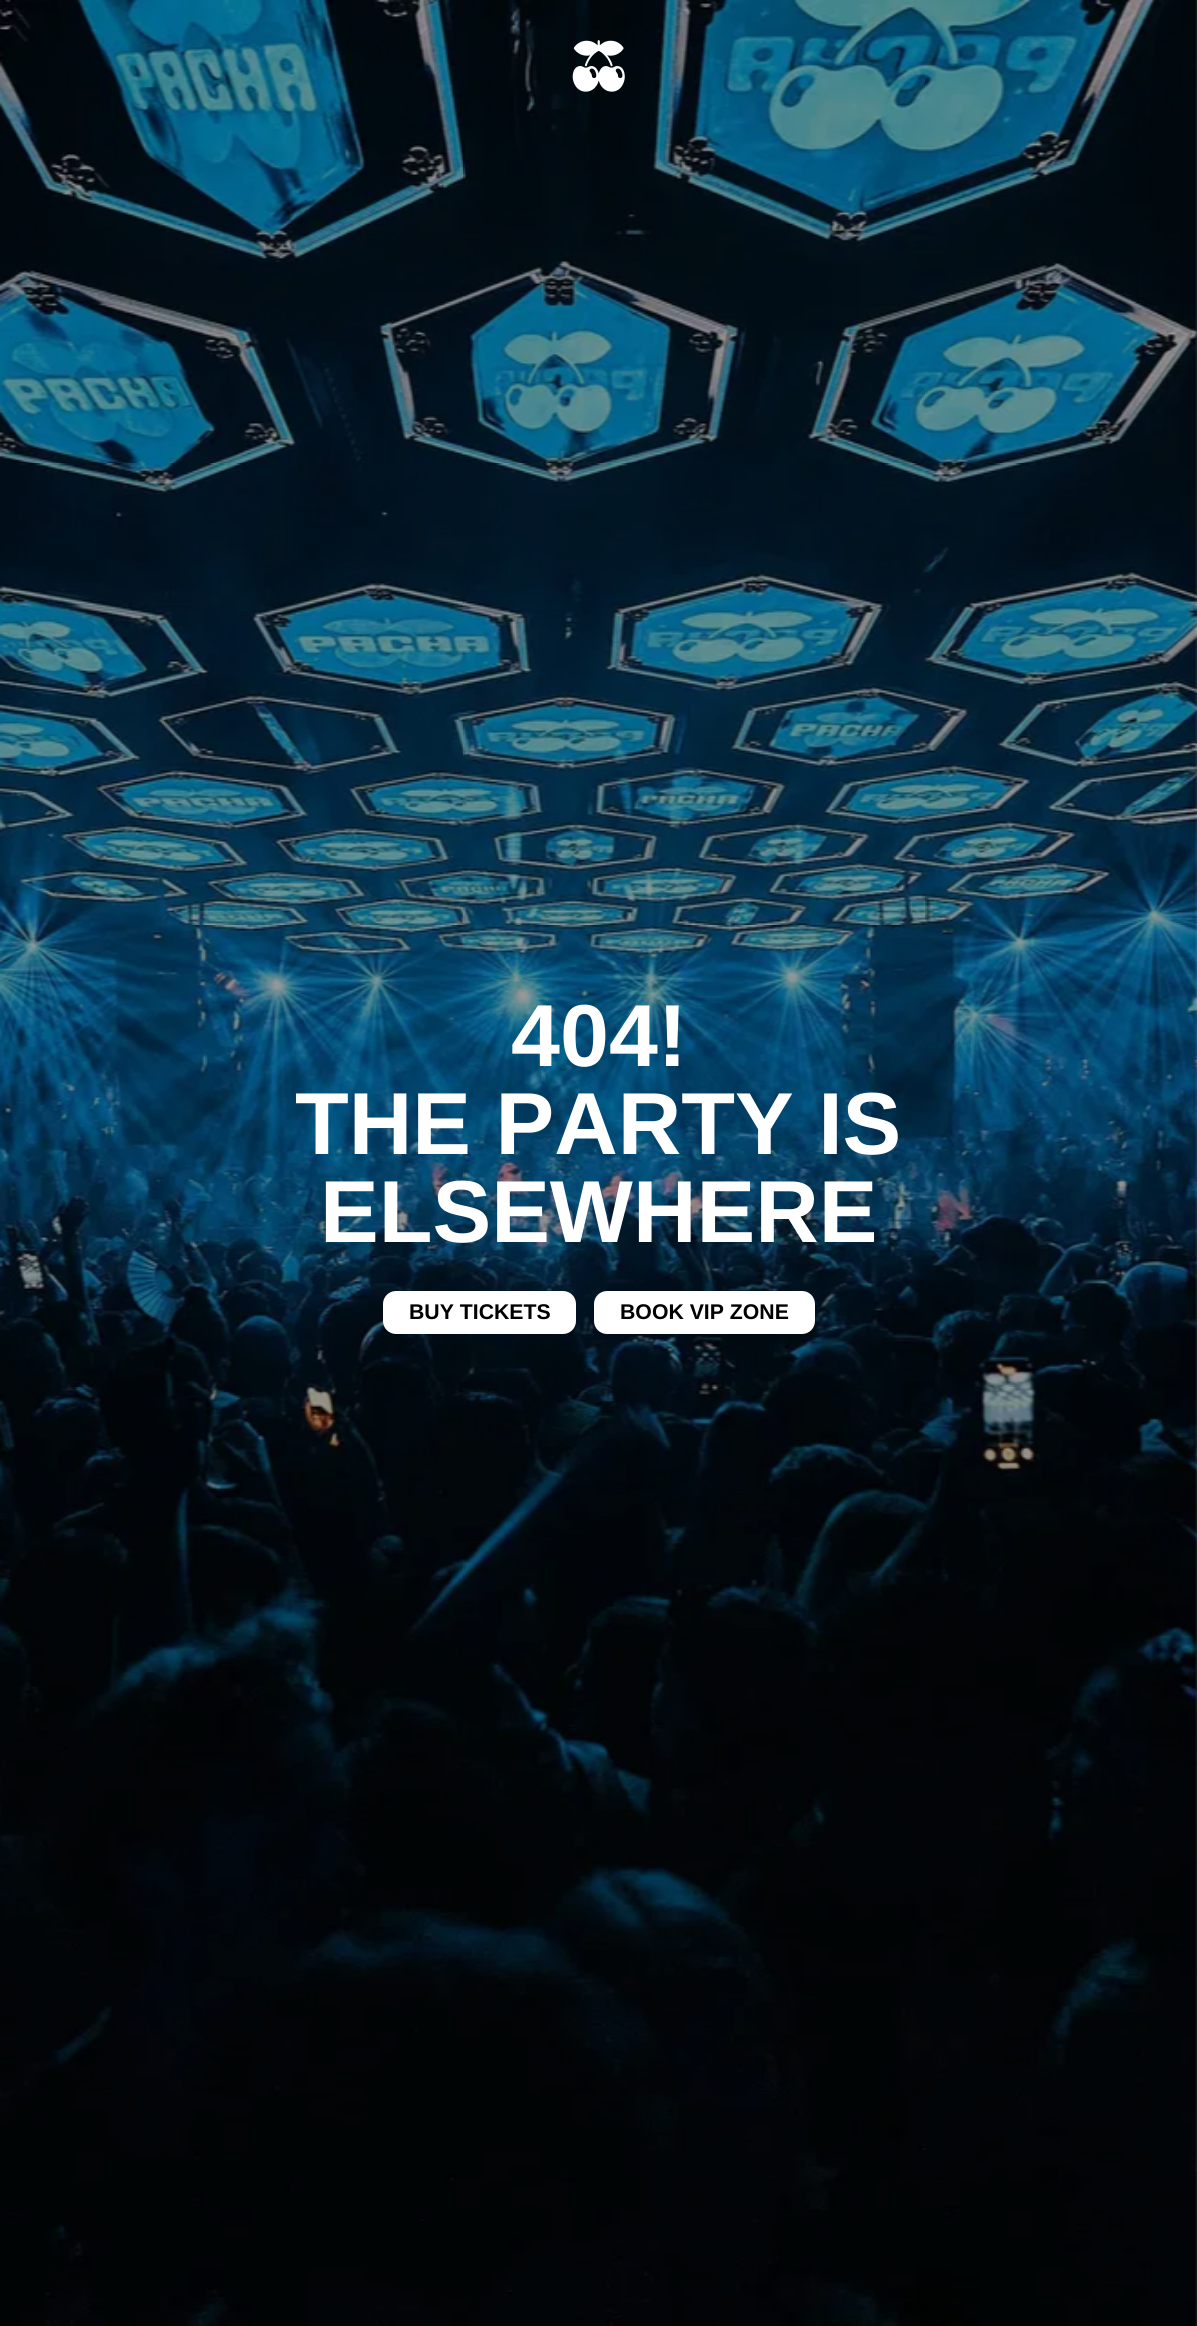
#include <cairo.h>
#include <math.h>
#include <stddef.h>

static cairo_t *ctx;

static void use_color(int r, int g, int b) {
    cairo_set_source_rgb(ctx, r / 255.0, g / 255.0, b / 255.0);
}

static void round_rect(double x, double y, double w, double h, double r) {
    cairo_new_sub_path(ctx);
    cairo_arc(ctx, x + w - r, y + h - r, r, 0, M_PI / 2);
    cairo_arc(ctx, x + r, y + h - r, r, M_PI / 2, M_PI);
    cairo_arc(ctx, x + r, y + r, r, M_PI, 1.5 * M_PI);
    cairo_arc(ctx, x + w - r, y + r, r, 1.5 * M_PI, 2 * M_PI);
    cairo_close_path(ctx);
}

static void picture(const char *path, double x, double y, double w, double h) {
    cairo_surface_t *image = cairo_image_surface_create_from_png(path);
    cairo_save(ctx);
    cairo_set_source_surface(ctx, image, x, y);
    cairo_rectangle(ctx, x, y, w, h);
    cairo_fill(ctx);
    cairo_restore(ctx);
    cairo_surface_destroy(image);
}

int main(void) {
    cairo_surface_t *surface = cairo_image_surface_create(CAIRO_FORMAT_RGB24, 1197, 2326);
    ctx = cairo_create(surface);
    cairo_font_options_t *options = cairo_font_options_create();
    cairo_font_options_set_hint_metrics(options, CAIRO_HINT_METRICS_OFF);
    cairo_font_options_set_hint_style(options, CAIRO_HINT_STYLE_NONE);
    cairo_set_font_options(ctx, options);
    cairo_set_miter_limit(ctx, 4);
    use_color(255, 255, 255);
    cairo_paint(ctx);
    picture("img1.png", 0, 0, 1197, 2326);
    picture("img2.png", 572, 40, 53, 52);
    cairo_select_font_face(ctx, "Liberation Sans", CAIRO_FONT_SLANT_NORMAL, CAIRO_FONT_WEIGHT_BOLD);
    cairo_set_font_size(ctx, 88);
    use_color(255, 255, 255);
    cairo_move_to(ctx, 511, 1066);
    cairo_show_text(ctx, "404!");
    cairo_move_to(ctx, 295, 1154);
    cairo_show_text(ctx, "THE PARTY IS");
    cairo_move_to(ctx, 320, 1242);
    cairo_show_text(ctx, "ELSEWHERE");
    round_rect(383, 1291, 193, 43, 13);
    cairo_fill(ctx);
    cairo_set_font_size(ctx, 21.25);
    use_color(0, 0, 0);
    cairo_move_to(ctx, 409, 1319);
    cairo_show_text(ctx, "BUY TICKETS");
    use_color(255, 255, 255);
    round_rect(594, 1291, 221, 43, 13);
    cairo_fill(ctx);
    use_color(0, 0, 0);
    cairo_move_to(ctx, 620, 1319);
    cairo_show_text(ctx, "BOOK VIP ZONE");
    cairo_surface_write_to_png(surface, "result.png");
    cairo_font_options_destroy(options);
    cairo_destroy(ctx);
    cairo_surface_destroy(surface);
    return 0;
}
